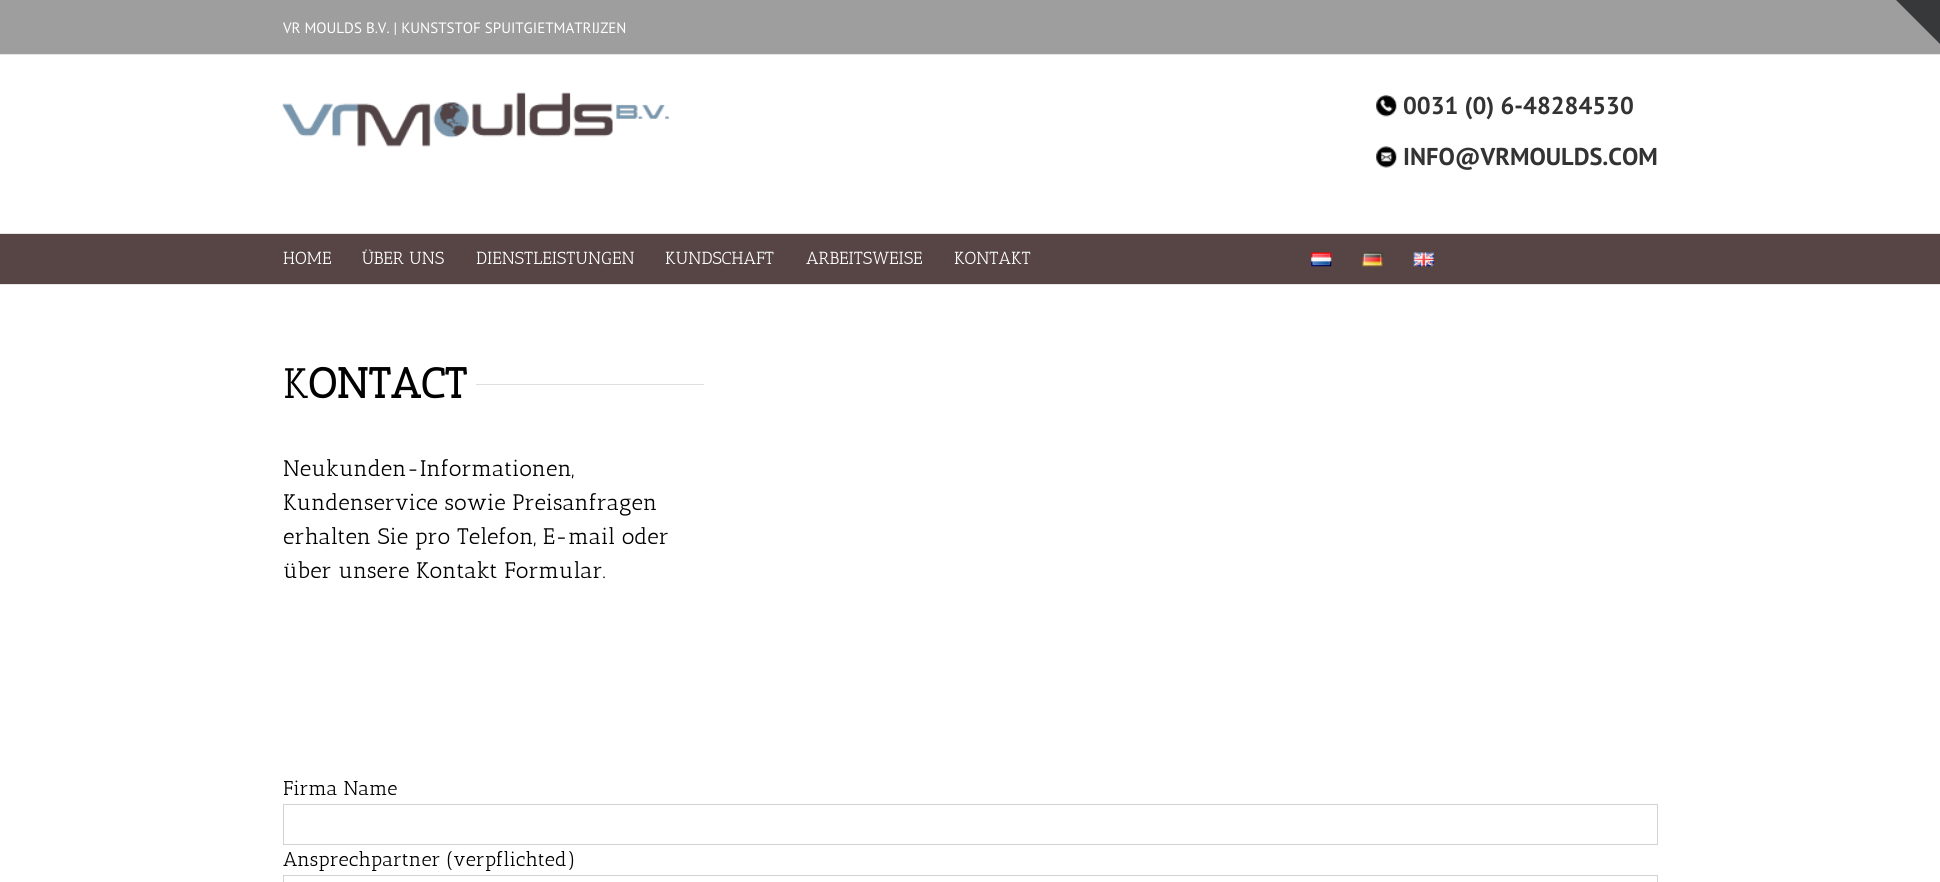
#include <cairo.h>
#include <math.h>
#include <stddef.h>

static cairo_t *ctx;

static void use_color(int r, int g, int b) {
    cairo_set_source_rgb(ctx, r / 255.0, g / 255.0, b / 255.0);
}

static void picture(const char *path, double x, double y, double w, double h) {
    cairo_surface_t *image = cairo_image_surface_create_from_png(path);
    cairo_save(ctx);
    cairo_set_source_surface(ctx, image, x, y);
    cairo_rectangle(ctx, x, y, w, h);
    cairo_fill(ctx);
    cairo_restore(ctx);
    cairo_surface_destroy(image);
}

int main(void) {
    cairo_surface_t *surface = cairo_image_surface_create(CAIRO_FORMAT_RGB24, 1940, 882);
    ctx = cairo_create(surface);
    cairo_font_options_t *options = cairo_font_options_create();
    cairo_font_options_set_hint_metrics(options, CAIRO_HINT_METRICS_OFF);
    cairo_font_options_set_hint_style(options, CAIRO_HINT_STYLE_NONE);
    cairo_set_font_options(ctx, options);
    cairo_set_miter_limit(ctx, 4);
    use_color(255, 255, 255);
    cairo_paint(ctx);
    use_color(158, 158, 158);
    cairo_rectangle(ctx, 0, 0, 1940, 54);
    cairo_fill(ctx);
    use_color(229, 229, 229);
    cairo_rectangle(ctx, 0, 54, 1940, 1);
    cairo_fill(ctx);
    cairo_select_font_face(ctx, "PT Sans", CAIRO_FONT_SLANT_NORMAL, CAIRO_FONT_WEIGHT_NORMAL);
    cairo_set_font_size(ctx, 15);
    use_color(255, 255, 255);
    cairo_move_to(ctx, 283, 33);
    cairo_show_text(ctx, "VR MOULDS B.V. | KUNSTSTOF SPUITGIETMATRIJZEN");
    use_color(229, 229, 229);
    cairo_rectangle(ctx, 0, 233, 1940, 1);
    cairo_fill(ctx);
    picture("img1.png", 282, 92, 387, 55);
    picture("img2.png", 1376, 94, 21, 23);
    cairo_select_font_face(ctx, "PT Sans", CAIRO_FONT_SLANT_NORMAL, CAIRO_FONT_WEIGHT_BOLD);
    cairo_set_font_size(ctx, 24.4);
    use_color(51, 51, 51);
    cairo_move_to(ctx, 1403, 114);
    cairo_show_text(ctx, "0031 (0) 6-48284530");
    picture("img3.png", 1376, 146, 21, 22);
    cairo_move_to(ctx, 1403, 165);
    cairo_show_text(ctx, "INFO@VRMOULDS.COM");
    use_color(87, 69, 69);
    cairo_rectangle(ctx, 0, 234, 1940, 50);
    cairo_fill(ctx);
    use_color(229, 229, 229);
    cairo_rectangle(ctx, 0, 284, 1940, 1);
    cairo_fill(ctx);
    cairo_select_font_face(ctx, "Antic Slab", CAIRO_FONT_SLANT_NORMAL, CAIRO_FONT_WEIGHT_NORMAL);
    cairo_set_font_size(ctx, 17.5);
    use_color(255, 255, 255);
    cairo_move_to(ctx, 283, 264);
    cairo_show_text(ctx, "HOME");
    cairo_move_to(ctx, 362, 264);
    cairo_show_text(ctx, "ÜBER UNS");
    cairo_move_to(ctx, 476, 264);
    cairo_show_text(ctx, "DIENSTLEISTUNGEN");
    cairo_move_to(ctx, 665, 264);
    cairo_show_text(ctx, "KUNDSCHAFT");
    cairo_move_to(ctx, 806, 264);
    cairo_show_text(ctx, "ARBEITSWEISE");
    cairo_move_to(ctx, 954, 264);
    cairo_show_text(ctx, "KONTAKT");
    picture("img4.png", 1311, 252, 21, 15);
    picture("img5.png", 1362, 252, 21, 15);
    picture("img6.png", 1413, 252, 21, 15);
    use_color(54, 56, 57);
    cairo_new_path(ctx);
    cairo_move_to(ctx, 1896, 0);
    cairo_line_to(ctx, 1940, 0);
    cairo_line_to(ctx, 1940, 44);
    cairo_close_path(ctx);
    cairo_fill(ctx);
    cairo_set_font_size(ctx, 42.5);
    use_color(0, 0, 0);
    cairo_move_to(ctx, 283, 398);
    cairo_show_text(ctx, "K");
    cairo_select_font_face(ctx, "Antic Slab", CAIRO_FONT_SLANT_NORMAL, CAIRO_FONT_WEIGHT_BOLD);
    cairo_move_to(ctx, 308, 398);
    cairo_show_text(ctx, "ONTACT");
    use_color(224, 222, 222);
    cairo_rectangle(ctx, 476, 384, 228, 1);
    cairo_fill(ctx);
    cairo_select_font_face(ctx, "Antic Slab", CAIRO_FONT_SLANT_NORMAL, CAIRO_FONT_WEIGHT_NORMAL);
    cairo_set_font_size(ctx, 22.5);
    use_color(0, 0, 0);
    cairo_move_to(ctx, 283, 476);
    cairo_show_text(ctx, "Neukunden-Informationen,");
    cairo_move_to(ctx, 283, 510);
    cairo_show_text(ctx, "Kundenservice sowie Preisanfragen");
    cairo_move_to(ctx, 283, 544);
    cairo_show_text(ctx, "erhalten Sie pro Telefon, E-mail oder");
    cairo_move_to(ctx, 283, 578);
    cairo_show_text(ctx, "über unsere Kontakt Formular.");
    cairo_set_font_size(ctx, 20);
    cairo_move_to(ctx, 283, 795);
    cairo_show_text(ctx, "Firma Name");
    cairo_rectangle(ctx, 283.5, 804.5, 1374, 40);
    use_color(210, 210, 210);
    cairo_set_line_width(ctx, 1);
    cairo_stroke(ctx);
    use_color(0, 0, 0);
    cairo_move_to(ctx, 283, 866);
    cairo_show_text(ctx, "Ansprechpartner (verpflichted)");
    cairo_rectangle(ctx, 283.5, 875.5, 1374, 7);
    use_color(210, 210, 210);
    cairo_stroke(ctx);
    cairo_surface_write_to_png(surface, "result.png");
    cairo_font_options_destroy(options);
    cairo_destroy(ctx);
    cairo_surface_destroy(surface);
    return 0;
}
